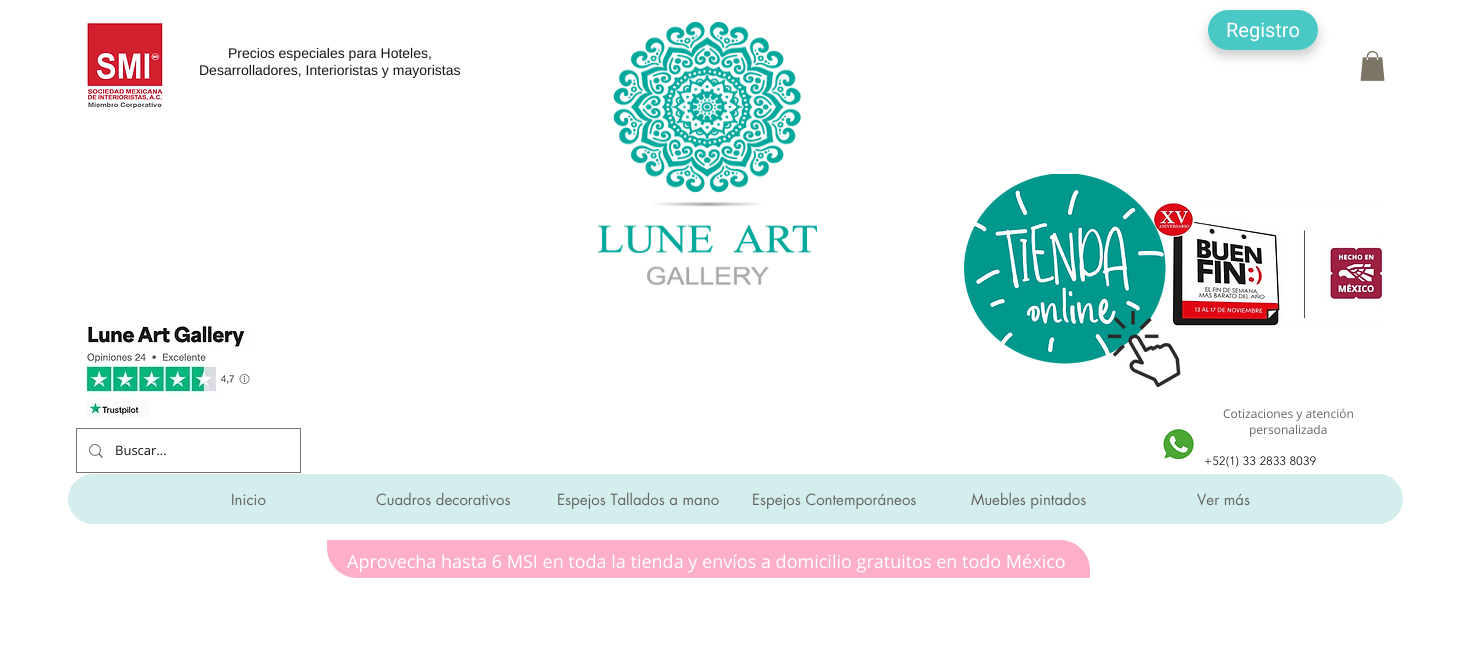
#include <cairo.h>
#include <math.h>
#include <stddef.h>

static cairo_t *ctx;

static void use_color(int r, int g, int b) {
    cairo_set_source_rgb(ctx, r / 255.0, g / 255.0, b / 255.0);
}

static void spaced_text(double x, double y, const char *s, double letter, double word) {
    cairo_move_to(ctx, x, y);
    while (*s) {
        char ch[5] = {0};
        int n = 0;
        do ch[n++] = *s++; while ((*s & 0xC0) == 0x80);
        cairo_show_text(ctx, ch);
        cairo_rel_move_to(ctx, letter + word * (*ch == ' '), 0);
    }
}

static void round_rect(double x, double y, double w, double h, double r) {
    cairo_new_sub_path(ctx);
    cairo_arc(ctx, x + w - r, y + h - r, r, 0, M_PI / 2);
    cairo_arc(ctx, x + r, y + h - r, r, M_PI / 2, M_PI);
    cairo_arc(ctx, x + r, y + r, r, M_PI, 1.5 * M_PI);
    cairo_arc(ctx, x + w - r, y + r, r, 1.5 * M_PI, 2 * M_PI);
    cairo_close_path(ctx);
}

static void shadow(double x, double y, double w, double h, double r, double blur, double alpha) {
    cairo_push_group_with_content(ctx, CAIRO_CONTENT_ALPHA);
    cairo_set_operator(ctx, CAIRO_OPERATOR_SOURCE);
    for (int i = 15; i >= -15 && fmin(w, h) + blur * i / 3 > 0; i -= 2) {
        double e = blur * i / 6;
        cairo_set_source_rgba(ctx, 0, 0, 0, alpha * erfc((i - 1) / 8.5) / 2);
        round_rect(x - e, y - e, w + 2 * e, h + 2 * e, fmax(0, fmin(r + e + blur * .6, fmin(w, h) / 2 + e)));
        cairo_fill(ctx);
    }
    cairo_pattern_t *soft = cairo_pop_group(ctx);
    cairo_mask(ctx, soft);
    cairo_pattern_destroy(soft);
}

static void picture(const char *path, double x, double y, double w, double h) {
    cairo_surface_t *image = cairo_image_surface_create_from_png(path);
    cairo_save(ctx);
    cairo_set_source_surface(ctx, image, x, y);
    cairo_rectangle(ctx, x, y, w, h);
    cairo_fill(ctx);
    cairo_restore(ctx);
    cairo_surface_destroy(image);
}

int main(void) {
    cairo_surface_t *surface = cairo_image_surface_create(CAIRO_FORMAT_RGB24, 1470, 664);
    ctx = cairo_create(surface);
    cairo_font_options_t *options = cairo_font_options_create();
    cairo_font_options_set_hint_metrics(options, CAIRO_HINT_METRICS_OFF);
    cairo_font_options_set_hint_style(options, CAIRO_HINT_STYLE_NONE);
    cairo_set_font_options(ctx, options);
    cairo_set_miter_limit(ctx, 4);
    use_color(255, 255, 255);
    cairo_paint(ctx);
    picture("img1.png", 87, 23, 76, 86);
    cairo_select_font_face(ctx, "Liberation Sans", CAIRO_FONT_SLANT_NORMAL, CAIRO_FONT_WEIGHT_NORMAL);
    cairo_set_font_size(ctx, 14);
    use_color(24, 23, 23);
    cairo_move_to(ctx, 228, 58);
    cairo_show_text(ctx, "Precios especiales para Hoteles,");
    cairo_move_to(ctx, 199, 75);
    cairo_show_text(ctx, "Desarrolladores, Interioristas y mayoristas");
    picture("img2.png", 598, 22, 219, 263);
    cairo_save(ctx);
    cairo_set_fill_rule(ctx, CAIRO_FILL_RULE_EVEN_ODD);
    cairo_new_path(ctx);
    cairo_move_to(ctx, 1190, 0);
    cairo_line_to(ctx, 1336, 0);
    cairo_line_to(ctx, 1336, 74);
    cairo_line_to(ctx, 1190, 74);
    cairo_close_path(ctx);
    cairo_move_to(ctx, 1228, 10);
    cairo_line_to(ctx, 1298, 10);
    cairo_curve_to(ctx, 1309, 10, 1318, 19, 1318, 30);
    cairo_curve_to(ctx, 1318, 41, 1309, 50, 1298, 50);
    cairo_line_to(ctx, 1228, 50);
    cairo_curve_to(ctx, 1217, 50, 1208, 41, 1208, 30);
    cairo_curve_to(ctx, 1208, 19, 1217, 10, 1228, 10);
    cairo_close_path(ctx);
    cairo_clip(ctx);
    use_color(0, 0, 0);
    shadow(1208, 16, 110, 40, 20, 5.5, 0.2);
    cairo_restore(ctx);
    cairo_set_source_rgba(ctx, 0.004, 0.694, 0.686, 0.71);
    round_rect(1208, 10, 110, 40, 20);
    cairo_fill(ctx);
    cairo_select_font_face(ctx, "Roboto", CAIRO_FONT_SLANT_NORMAL, CAIRO_FONT_WEIGHT_NORMAL);
    cairo_set_font_size(ctx, 20);
    use_color(255, 255, 255);
    cairo_move_to(ctx, 1226, 37);
    cairo_show_text(ctx, "Registro");
    picture("img3.png", 1360, 51, 25, 30);
    picture("img5.png", 1154, 203, 228, 125);
    picture("img4.png", 964, 174, 202, 190);
    picture("img6.png", 85, 324, 166, 94);
    picture("img7.png", 1107, 310, 74, 78);
    cairo_rectangle(ctx, 76.5, 428.5, 224, 44);
    use_color(116, 116, 116);
    cairo_set_line_width(ctx, 1);
    cairo_stroke(ctx);
    picture("img8.png", 89, 444, 14, 14);
    cairo_select_font_face(ctx, "Open Sans", CAIRO_FONT_SLANT_NORMAL, CAIRO_FONT_WEIGHT_NORMAL);
    cairo_set_font_size(ctx, 13);
    use_color(24, 23, 23);
    cairo_move_to(ctx, 115, 455);
    cairo_show_text(ctx, "Buscar...");
    picture("img9.png", 1163, 429, 31, 31);
    cairo_set_font_size(ctx, 12);
    use_color(102, 102, 102);
    cairo_move_to(ctx, 1223, 418);
    cairo_show_text(ctx, "Cotizaciones y atención");
    cairo_move_to(ctx, 1249, 434);
    cairo_show_text(ctx, "personalizada");
    cairo_select_font_face(ctx, "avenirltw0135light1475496 Light", CAIRO_FONT_SLANT_NORMAL, CAIRO_FONT_WEIGHT_NORMAL);
    use_color(0, 0, 0);
    spaced_text(1204, 465, "+52(1) 33 2833 8039", 0.4, 0);
    use_color(212, 238, 237);
    round_rect(68, 474, 1335, 50, 25);
    cairo_fill(ctx);
    cairo_select_font_face(ctx, "futura", CAIRO_FONT_SLANT_NORMAL, CAIRO_FONT_WEIGHT_NORMAL);
    cairo_set_font_size(ctx, 15);
    use_color(102, 102, 102);
    cairo_move_to(ctx, 231, 505);
    cairo_show_text(ctx, "Inicio");
    cairo_move_to(ctx, 376, 505);
    cairo_show_text(ctx, "Cuadros decorativos");
    cairo_move_to(ctx, 557, 505);
    cairo_show_text(ctx, "Espejos Tallados a mano");
    cairo_move_to(ctx, 752, 505);
    cairo_show_text(ctx, "Espejos Contemporáneos");
    cairo_move_to(ctx, 971, 505);
    cairo_show_text(ctx, "Muebles pintados");
    cairo_move_to(ctx, 1197, 505);
    cairo_show_text(ctx, "Ver más");
    use_color(252, 175, 198);
    cairo_new_path(ctx);
    cairo_move_to(ctx, 327, 540);
    cairo_line_to(ctx, 1060, 540);
    cairo_curve_to(ctx, 1076.5, 540, 1090, 553.5, 1090, 570);
    cairo_line_to(ctx, 1090, 578);
    cairo_line_to(ctx, 357, 578);
    cairo_curve_to(ctx, 340.5, 578, 327, 564.5, 327, 548);
    cairo_close_path(ctx);
    cairo_fill(ctx);
    cairo_select_font_face(ctx, "Open Sans", CAIRO_FONT_SLANT_NORMAL, CAIRO_FONT_WEIGHT_NORMAL);
    cairo_set_font_size(ctx, 18);
    use_color(255, 255, 255);
    cairo_move_to(ctx, 347, 568);
    cairo_show_text(ctx, "Aprovecha hasta 6 MSI en toda la tienda y envíos a domicilio gratuitos en todo México");
    cairo_surface_write_to_png(surface, "result.png");
    cairo_font_options_destroy(options);
    cairo_destroy(ctx);
    cairo_surface_destroy(surface);
    return 0;
}
